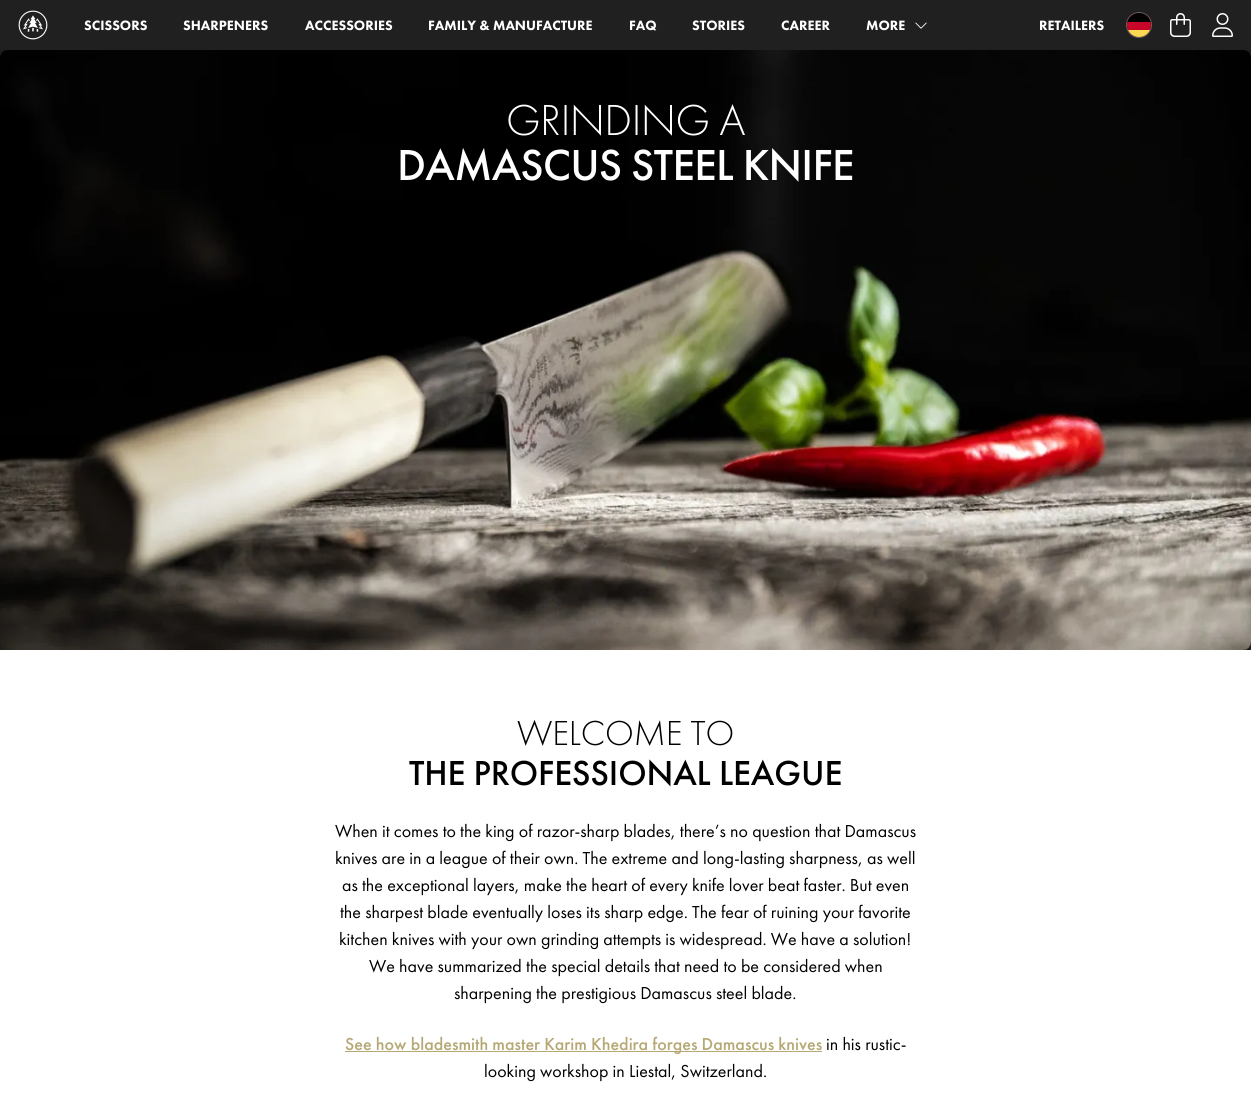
#include <cairo.h>
#include <math.h>
#include <stddef.h>

static cairo_t *ctx;

static void use_color(int r, int g, int b) {
    cairo_set_source_rgb(ctx, r / 255.0, g / 255.0, b / 255.0);
}

static void spaced_text(double x, double y, const char *s, double letter, double word) {
    cairo_move_to(ctx, x, y);
    while (*s) {
        char ch[5] = {0};
        int n = 0;
        do ch[n++] = *s++; while ((*s & 0xC0) == 0x80);
        cairo_show_text(ctx, ch);
        cairo_rel_move_to(ctx, letter + word * (*ch == ' '), 0);
    }
}

static void round_rect(double x, double y, double w, double h, double r) {
    cairo_new_sub_path(ctx);
    cairo_arc(ctx, x + w - r, y + h - r, r, 0, M_PI / 2);
    cairo_arc(ctx, x + r, y + h - r, r, M_PI / 2, M_PI);
    cairo_arc(ctx, x + r, y + r, r, M_PI, 1.5 * M_PI);
    cairo_arc(ctx, x + w - r, y + r, r, 1.5 * M_PI, 2 * M_PI);
    cairo_close_path(ctx);
}

static void picture(const char *path, double x, double y, double w, double h) {
    cairo_surface_t *image = cairo_image_surface_create_from_png(path);
    cairo_save(ctx);
    cairo_set_source_surface(ctx, image, x, y);
    cairo_rectangle(ctx, x, y, w, h);
    cairo_fill(ctx);
    cairo_restore(ctx);
    cairo_surface_destroy(image);
}

int main(void) {
    cairo_surface_t *surface = cairo_image_surface_create(CAIRO_FORMAT_RGB24, 1251, 1103);
    ctx = cairo_create(surface);
    cairo_font_options_t *options = cairo_font_options_create();
    cairo_font_options_set_hint_metrics(options, CAIRO_HINT_METRICS_OFF);
    cairo_font_options_set_hint_style(options, CAIRO_HINT_STYLE_NONE);
    cairo_set_font_options(ctx, options);
    cairo_set_miter_limit(ctx, 4);
    use_color(255, 255, 255);
    cairo_paint(ctx);
    use_color(32, 32, 32);
    cairo_rectangle(ctx, 0, 0, 1251, 50);
    cairo_fill(ctx);
    picture("img1.png", 18, 10, 30, 30);
    cairo_select_font_face(ctx, "Futura PT Black", CAIRO_FONT_SLANT_NORMAL, CAIRO_FONT_WEIGHT_NORMAL);
    cairo_set_font_size(ctx, 14);
    use_color(255, 255, 255);
    cairo_move_to(ctx, 84, 30);
    cairo_show_text(ctx, "SCISSORS");
    cairo_move_to(ctx, 183, 30);
    cairo_show_text(ctx, "SHARPENERS");
    cairo_move_to(ctx, 305, 30);
    cairo_show_text(ctx, "ACCESSORIES");
    cairo_move_to(ctx, 428, 30);
    cairo_show_text(ctx, "FAMILY & MANUFACTURE");
    cairo_move_to(ctx, 629, 30);
    cairo_show_text(ctx, "FAQ");
    cairo_move_to(ctx, 692, 30);
    cairo_show_text(ctx, "STORIES");
    cairo_move_to(ctx, 781, 30);
    cairo_show_text(ctx, "CAREER");
    cairo_move_to(ctx, 866, 30);
    cairo_show_text(ctx, "MORE");
    picture("img2.png", 915, 22, 12, 7);
    cairo_move_to(ctx, 1039, 30);
    cairo_show_text(ctx, "RETAILERS");
    cairo_new_path(ctx);
    cairo_arc(ctx, 1139, 25, 12.5, 0, 2 * M_PI);
    use_color(99, 99, 99);
    cairo_set_line_width(ctx, 1);
    cairo_stroke(ctx);
    use_color(199, 5, 40);
    cairo_arc(ctx, 1139, 25, 12, 0, 2 * M_PI);
    cairo_fill(ctx);
    cairo_save(ctx);
    round_rect(1127, 13, 24, 24, 12);
    cairo_clip(ctx);
    use_color(0, 0, 0);
    cairo_rectangle(ctx, 1127, 13, 24, 9);
    cairo_fill(ctx);
    use_color(251, 218, 83);
    cairo_rectangle(ctx, 1127, 30, 24, 7);
    cairo_fill(ctx);
    cairo_restore(ctx);
    picture("img3.png", 1170, 13, 21, 24);
    picture("img4.png", 1212, 13, 21, 24);
    use_color(29, 29, 29);
    cairo_rectangle(ctx, 0, 50, 1251, 600);
    cairo_fill(ctx);
    picture("img5.png", 0, 50, 1251, 600);
    cairo_select_font_face(ctx, "Futura PT Light", CAIRO_FONT_SLANT_NORMAL, CAIRO_FONT_WEIGHT_NORMAL);
    cairo_set_font_size(ctx, 45);
    use_color(255, 255, 255);
    spaced_text(506, 135, "GRINDING A", -0.7, 0);
    cairo_select_font_face(ctx, "Futura PT Medium", CAIRO_FONT_SLANT_NORMAL, CAIRO_FONT_WEIGHT_NORMAL);
    spaced_text(397, 180, "DAMASCUS STEEL KNIFE", -0.7, 0);
    cairo_select_font_face(ctx, "Futura PT Light", CAIRO_FONT_SLANT_NORMAL, CAIRO_FONT_WEIGHT_NORMAL);
    cairo_set_font_size(ctx, 36);
    use_color(0, 0, 0);
    spaced_text(517, 745, "WELCOME TO", -0.15, 0);
    cairo_select_font_face(ctx, "Futura PT Medium", CAIRO_FONT_SLANT_NORMAL, CAIRO_FONT_WEIGHT_NORMAL);
    spaced_text(409, 785, "THE PROFESSIONAL LEAGUE", -0.15, 0);
    cairo_select_font_face(ctx, "Futura PT", CAIRO_FONT_SLANT_NORMAL, CAIRO_FONT_WEIGHT_NORMAL);
    cairo_set_font_size(ctx, 18);
    cairo_move_to(ctx, 335, 837);
    cairo_show_text(ctx, "When it comes to the king of razor-sharp blades, there’s no question that Damascus");
    cairo_move_to(ctx, 335, 864);
    cairo_show_text(ctx, "knives are in a league of their own. The extreme and long-lasting sharpness, as well");
    cairo_move_to(ctx, 342, 891);
    cairo_show_text(ctx, "as the exceptional layers, make the heart of every knife lover beat faster. But even");
    cairo_move_to(ctx, 340, 918);
    cairo_show_text(ctx, "the sharpest blade eventually loses its sharp edge. The fear of ruining your favorite");
    cairo_move_to(ctx, 339, 945);
    cairo_show_text(ctx, "kitchen knives with your own grinding attempts is widespread. We have a solution!");
    cairo_move_to(ctx, 369, 972);
    cairo_show_text(ctx, "We have summarized the special details that need to be considered when");
    cairo_move_to(ctx, 454, 999);
    cairo_show_text(ctx, "sharpening the prestigious Damascus steel blade.");
    use_color(181, 168, 116);
    cairo_rectangle(ctx, 345, 1051, 477, 1);
    cairo_fill(ctx);
    cairo_select_font_face(ctx, "Futura PT Medium", CAIRO_FONT_SLANT_NORMAL, CAIRO_FONT_WEIGHT_NORMAL);
    cairo_move_to(ctx, 345, 1050);
    cairo_show_text(ctx, "See how bladesmith master Karim Khedira forges Damascus knives");
    cairo_select_font_face(ctx, "Futura PT", CAIRO_FONT_SLANT_NORMAL, CAIRO_FONT_WEIGHT_NORMAL);
    use_color(0, 0, 0);
    cairo_move_to(ctx, 826, 1050);
    cairo_show_text(ctx, "in his rustic-");
    cairo_move_to(ctx, 484, 1077);
    cairo_show_text(ctx, "looking workshop in Liestal, Switzerland.");
    cairo_surface_write_to_png(surface, "result.png");
    cairo_font_options_destroy(options);
    cairo_destroy(ctx);
    cairo_surface_destroy(surface);
    return 0;
}
